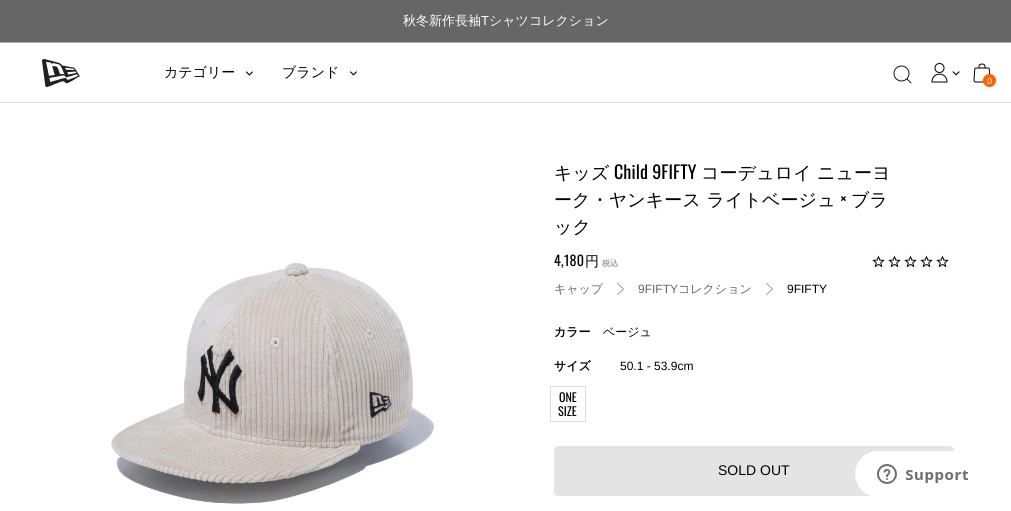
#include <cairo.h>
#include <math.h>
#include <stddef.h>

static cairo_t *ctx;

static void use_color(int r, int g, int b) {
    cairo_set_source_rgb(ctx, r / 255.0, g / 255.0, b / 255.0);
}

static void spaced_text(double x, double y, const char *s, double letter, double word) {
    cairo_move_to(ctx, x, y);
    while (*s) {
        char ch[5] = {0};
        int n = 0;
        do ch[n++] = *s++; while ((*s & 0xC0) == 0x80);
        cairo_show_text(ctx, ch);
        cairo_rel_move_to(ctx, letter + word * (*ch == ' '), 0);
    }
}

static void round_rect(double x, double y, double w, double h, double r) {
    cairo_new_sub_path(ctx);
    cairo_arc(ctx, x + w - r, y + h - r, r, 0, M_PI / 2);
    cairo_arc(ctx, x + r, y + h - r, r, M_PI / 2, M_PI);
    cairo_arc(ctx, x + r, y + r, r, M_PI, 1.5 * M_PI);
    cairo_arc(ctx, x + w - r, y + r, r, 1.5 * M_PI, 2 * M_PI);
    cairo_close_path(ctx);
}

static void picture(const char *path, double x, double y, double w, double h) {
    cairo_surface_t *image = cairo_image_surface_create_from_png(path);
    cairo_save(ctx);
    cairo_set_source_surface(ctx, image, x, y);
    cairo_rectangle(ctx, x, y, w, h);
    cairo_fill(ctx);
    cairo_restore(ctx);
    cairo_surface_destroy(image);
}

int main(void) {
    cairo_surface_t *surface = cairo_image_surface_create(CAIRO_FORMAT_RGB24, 1011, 511);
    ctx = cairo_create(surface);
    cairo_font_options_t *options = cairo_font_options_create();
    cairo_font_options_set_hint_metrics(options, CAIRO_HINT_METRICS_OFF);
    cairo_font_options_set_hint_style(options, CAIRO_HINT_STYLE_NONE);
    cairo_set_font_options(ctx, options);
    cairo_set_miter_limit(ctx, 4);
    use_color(255, 255, 255);
    cairo_paint(ctx);
    use_color(102, 102, 102);
    cairo_rectangle(ctx, 0, 0, 1011, 42);
    cairo_fill(ctx);
    use_color(173, 173, 173);
    cairo_rectangle(ctx, 0, 42, 1011, 1);
    cairo_fill(ctx);
    cairo_select_font_face(ctx, "WenQuanYi Zen Hei Medium", CAIRO_FONT_SLANT_NORMAL, CAIRO_FONT_WEIGHT_NORMAL);
    cairo_set_font_size(ctx, 13);
    use_color(255, 255, 255);
    cairo_move_to(ctx, 403, 25);
    cairo_show_text(ctx, "秋冬新作長袖");
    cairo_select_font_face(ctx, "Liberation Sans", CAIRO_FONT_SLANT_NORMAL, CAIRO_FONT_WEIGHT_NORMAL);
    cairo_move_to(ctx, 481, 25);
    cairo_show_text(ctx, "T");
    cairo_select_font_face(ctx, "WenQuanYi Zen Hei Medium", CAIRO_FONT_SLANT_NORMAL, CAIRO_FONT_WEIGHT_NORMAL);
    cairo_move_to(ctx, 489, 25);
    cairo_show_text(ctx, "シャツコレクション");
    use_color(221, 221, 221);
    cairo_rectangle(ctx, 0, 102, 1011, 1);
    cairo_fill(ctx);
    picture("img1.png", 42, 59, 38, 28);
    cairo_set_font_size(ctx, 14);
    use_color(0, 0, 0);
    cairo_move_to(ctx, 164, 77);
    cairo_show_text(ctx, "カテゴリー");
    picture("img2.png", 246, 71, 7, 5);
    cairo_move_to(ctx, 282, 77);
    cairo_show_text(ctx, "ブランド");
    picture("img3.png", 350, 71, 7, 5);
    cairo_arc(ctx, 901.5, 73.5, 7.5, 0, 2 * M_PI);
    cairo_set_line_width(ctx, 0.9);
    cairo_stroke(ctx);
    cairo_new_path(ctx);
    cairo_move_to(ctx, 911, 83);
    cairo_line_to(ctx, 907, 79);
    cairo_set_line_cap(ctx, CAIRO_LINE_CAP_ROUND);
    cairo_set_line_join(ctx, CAIRO_LINE_JOIN_ROUND);
    cairo_stroke(ctx);
    cairo_arc(ctx, 939.5, 68, 4.5, 0, 2 * M_PI);
    cairo_set_line_width(ctx, 1);
    cairo_set_line_cap(ctx, CAIRO_LINE_CAP_BUTT);
    cairo_set_line_join(ctx, CAIRO_LINE_JOIN_MITER);
    cairo_stroke(ctx);
    cairo_new_path(ctx);
    cairo_move_to(ctx, 932, 82);
    cairo_curve_to(ctx, 932, 71.5, 947, 71.5, 947, 82);
    cairo_close_path(ctx);
    cairo_stroke(ctx);
    picture("img4.png", 952, 71, 8, 5);
    picture("img5.png", 973, 63, 18, 20);
    use_color(255, 96, 0);
    cairo_arc(ctx, 989.5, 80.5, 6.5, 0, 2 * M_PI);
    cairo_fill(ctx);
    cairo_select_font_face(ctx, "Liberation Sans", CAIRO_FONT_SLANT_NORMAL, CAIRO_FONT_WEIGHT_NORMAL);
    cairo_set_font_size(ctx, 9);
    use_color(255, 255, 255);
    cairo_move_to(ctx, 987, 84);
    cairo_show_text(ctx, "0");
    picture("img6.png", 111, 263, 324, 241);
    cairo_select_font_face(ctx, "WenQuanYi Zen Hei Medium", CAIRO_FONT_SLANT_NORMAL, CAIRO_FONT_WEIGHT_NORMAL);
    cairo_set_font_size(ctx, 18);
    use_color(0, 0, 0);
    spaced_text(554, 179, "キッズ", 0.1, 0);
    cairo_select_font_face(ctx, "Oswald", CAIRO_FONT_SLANT_NORMAL, CAIRO_FONT_WEIGHT_NORMAL);
    spaced_text(614, 179, "Child 9FIFTY", 0.1, 0);
    cairo_select_font_face(ctx, "WenQuanYi Zen Hei Medium", CAIRO_FONT_SLANT_NORMAL, CAIRO_FONT_WEIGHT_NORMAL);
    spaced_text(701, 179, "コーデュロイ", 0.1, 0);
    spaced_text(817, 179, "ニューヨ", 0.1, 0);
    spaced_text(554, 206, "ーク・ヤンキース ライトベージュ", 0.1, 0);
    cairo_select_font_face(ctx, "Oswald", CAIRO_FONT_SLANT_NORMAL, CAIRO_FONT_WEIGHT_NORMAL);
    spaced_text(840, 206, "×", 0.1, 0);
    cairo_select_font_face(ctx, "WenQuanYi Zen Hei Medium", CAIRO_FONT_SLANT_NORMAL, CAIRO_FONT_WEIGHT_NORMAL);
    spaced_text(851, 206, "ブラ", 0.1, 0);
    spaced_text(554, 233, "ック", 0.1, 0);
    cairo_select_font_face(ctx, "Oswald", CAIRO_FONT_SLANT_NORMAL, CAIRO_FONT_WEIGHT_NORMAL);
    cairo_set_font_size(ctx, 14);
    spaced_text(554, 266, "4,180", 0.25, 0);
    cairo_select_font_face(ctx, "WenQuanYi Zen Hei Medium", CAIRO_FONT_SLANT_NORMAL, CAIRO_FONT_WEIGHT_NORMAL);
    spaced_text(585, 266, "円", 0.25, 0);
    cairo_select_font_face(ctx, "WenQuanYi Zen Hei", CAIRO_FONT_SLANT_NORMAL, CAIRO_FONT_WEIGHT_BOLD);
    cairo_set_font_size(ctx, 8);
    use_color(153, 153, 153);
    spaced_text(602, 266, "税込", 0.25, 0);
    picture("img7.png", 872, 255, 13, 13);
    picture("img7.png", 888, 255, 13, 13);
    picture("img7.png", 904, 255, 13, 13);
    picture("img7.png", 920, 255, 13, 13);
    picture("img7.png", 936, 255, 13, 13);
    cairo_select_font_face(ctx, "WenQuanYi Zen Hei Medium", CAIRO_FONT_SLANT_NORMAL, CAIRO_FONT_WEIGHT_NORMAL);
    cairo_set_font_size(ctx, 12);
    use_color(102, 102, 102);
    cairo_move_to(ctx, 554, 293);
    cairo_show_text(ctx, "キャップ");
    cairo_new_path(ctx);
    cairo_move_to(ctx, 617.5, 283.5);
    cairo_line_to(ctx, 623.5, 289);
    cairo_line_to(ctx, 617.5, 294.5);
    use_color(151, 151, 151);
    cairo_set_line_width(ctx, 0.9);
    cairo_set_line_cap(ctx, CAIRO_LINE_CAP_ROUND);
    cairo_set_line_join(ctx, CAIRO_LINE_JOIN_ROUND);
    cairo_stroke(ctx);
    cairo_select_font_face(ctx, "Liberation Sans", CAIRO_FONT_SLANT_NORMAL, CAIRO_FONT_WEIGHT_NORMAL);
    use_color(102, 102, 102);
    cairo_move_to(ctx, 638, 293);
    cairo_show_text(ctx, "9FIFTY");
    cairo_select_font_face(ctx, "WenQuanYi Zen Hei Medium", CAIRO_FONT_SLANT_NORMAL, CAIRO_FONT_WEIGHT_NORMAL);
    cairo_move_to(ctx, 678, 293);
    cairo_show_text(ctx, "コレクション");
    cairo_new_path(ctx);
    cairo_move_to(ctx, 766.5, 283.5);
    cairo_line_to(ctx, 772.5, 289);
    cairo_line_to(ctx, 766.5, 294.5);
    use_color(151, 151, 151);
    cairo_stroke(ctx);
    cairo_select_font_face(ctx, "Liberation Sans", CAIRO_FONT_SLANT_NORMAL, CAIRO_FONT_WEIGHT_NORMAL);
    use_color(0, 0, 0);
    cairo_move_to(ctx, 787, 293);
    cairo_show_text(ctx, "9FIFTY");
    cairo_select_font_face(ctx, "WenQuanYi Zen Hei", CAIRO_FONT_SLANT_NORMAL, CAIRO_FONT_WEIGHT_BOLD);
    cairo_move_to(ctx, 554, 336);
    cairo_show_text(ctx, "カラー");
    cairo_select_font_face(ctx, "WenQuanYi Zen Hei Medium", CAIRO_FONT_SLANT_NORMAL, CAIRO_FONT_WEIGHT_NORMAL);
    cairo_move_to(ctx, 603, 336);
    cairo_show_text(ctx, "ベージュ");
    cairo_select_font_face(ctx, "WenQuanYi Zen Hei", CAIRO_FONT_SLANT_NORMAL, CAIRO_FONT_WEIGHT_BOLD);
    cairo_move_to(ctx, 554, 370);
    cairo_show_text(ctx, "サイズ");
    cairo_select_font_face(ctx, "Liberation Sans", CAIRO_FONT_SLANT_NORMAL, CAIRO_FONT_WEIGHT_NORMAL);
    cairo_move_to(ctx, 620, 370);
    cairo_show_text(ctx, "50.1 - 53.9cm");
    cairo_rectangle(ctx, 550.5, 386.5, 35, 35);
    use_color(221, 221, 221);
    cairo_set_line_width(ctx, 1);
    cairo_set_line_cap(ctx, CAIRO_LINE_CAP_BUTT);
    cairo_set_line_join(ctx, CAIRO_LINE_JOIN_MITER);
    cairo_stroke(ctx);
    cairo_select_font_face(ctx, "Oswald", CAIRO_FONT_SLANT_NORMAL, CAIRO_FONT_WEIGHT_NORMAL);
    use_color(0, 0, 0);
    cairo_move_to(ctx, 559, 402);
    cairo_show_text(ctx, "ONE");
    cairo_move_to(ctx, 558, 416);
    cairo_show_text(ctx, "SIZE");
    use_color(228, 228, 228);
    round_rect(554.5, 446.5, 399, 49, 3.5);
    cairo_fill_preserve(ctx);
    cairo_stroke(ctx);
    cairo_select_font_face(ctx, "Liberation Sans", CAIRO_FONT_SLANT_NORMAL, CAIRO_FONT_WEIGHT_NORMAL);
    cairo_set_font_size(ctx, 14);
    use_color(0, 0, 0);
    cairo_move_to(ctx, 718, 475);
    cairo_show_text(ctx, "SOLD OUT");
    picture("img8.png", 855, 451, 114, 45);
    cairo_surface_write_to_png(surface, "result.png");
    cairo_font_options_destroy(options);
    cairo_destroy(ctx);
    cairo_surface_destroy(surface);
    return 0;
}
